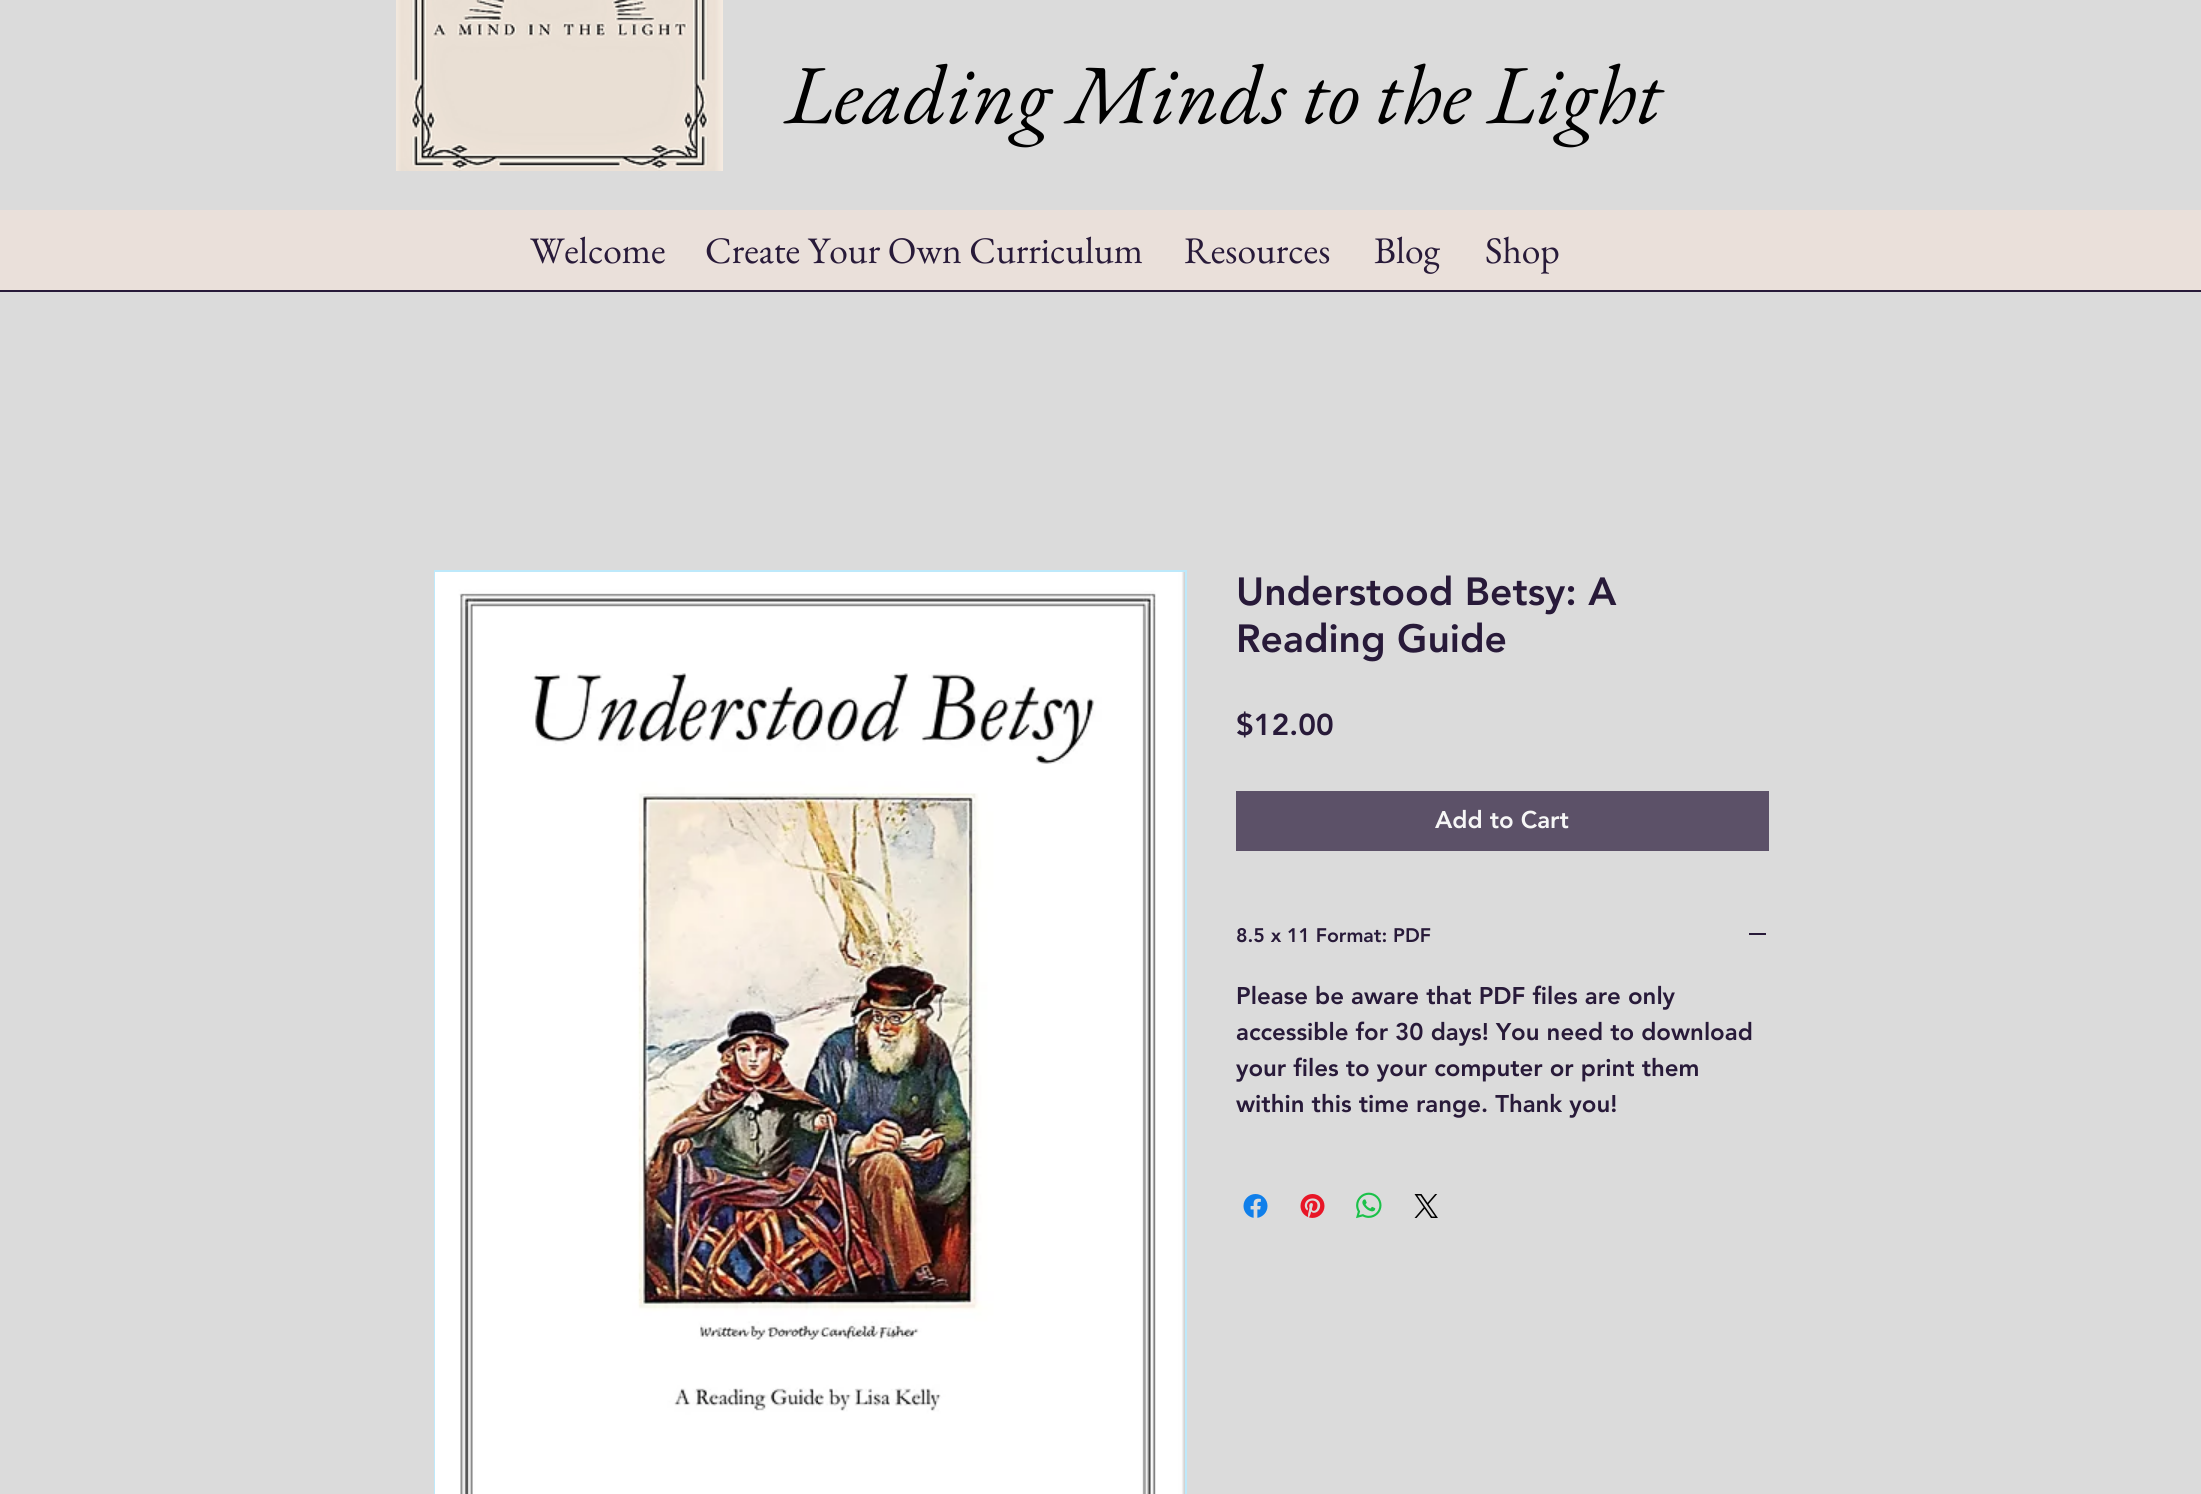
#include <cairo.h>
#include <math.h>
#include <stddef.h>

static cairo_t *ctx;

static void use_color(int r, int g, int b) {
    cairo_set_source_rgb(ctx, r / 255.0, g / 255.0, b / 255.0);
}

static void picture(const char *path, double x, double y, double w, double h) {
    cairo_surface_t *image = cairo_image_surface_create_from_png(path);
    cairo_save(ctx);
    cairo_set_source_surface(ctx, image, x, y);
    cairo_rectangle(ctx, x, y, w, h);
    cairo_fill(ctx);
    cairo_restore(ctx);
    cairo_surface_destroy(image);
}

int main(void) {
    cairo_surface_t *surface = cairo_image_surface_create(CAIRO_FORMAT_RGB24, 2201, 1494);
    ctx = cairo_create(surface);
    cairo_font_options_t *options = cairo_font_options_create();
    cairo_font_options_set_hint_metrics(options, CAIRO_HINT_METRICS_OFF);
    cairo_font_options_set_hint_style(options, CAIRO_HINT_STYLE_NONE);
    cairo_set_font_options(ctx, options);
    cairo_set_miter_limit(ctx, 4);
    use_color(219, 219, 219);
    cairo_paint(ctx);
    picture("img1.png", 396, 0, 327, 171);
    cairo_select_font_face(ctx, "EB Garamond", CAIRO_FONT_SLANT_ITALIC, CAIRO_FONT_WEIGHT_NORMAL);
    cairo_set_font_size(ctx, 84);
    use_color(0, 0, 0);
    cairo_move_to(ctx, 785, 123);
    cairo_show_text(ctx, "Leading Minds to the Light");
    use_color(234, 224, 218);
    cairo_rectangle(ctx, 0, 210, 2201, 80);
    cairo_fill(ctx);
    use_color(40, 26, 57);
    cairo_rectangle(ctx, 0, 290, 2201, 2);
    cairo_fill(ctx);
    cairo_select_font_face(ctx, "EB Garamond", CAIRO_FONT_SLANT_NORMAL, CAIRO_FONT_WEIGHT_NORMAL);
    cairo_set_font_size(ctx, 37.5);
    cairo_move_to(ctx, 530, 263);
    cairo_show_text(ctx, "Welcome");
    cairo_move_to(ctx, 705, 263);
    cairo_show_text(ctx, "Create Your Own Curriculum");
    cairo_move_to(ctx, 1184, 263);
    cairo_show_text(ctx, "Resources");
    cairo_move_to(ctx, 1374, 263);
    cairo_show_text(ctx, "Blog");
    cairo_move_to(ctx, 1485, 263);
    cairo_show_text(ctx, "Shop");
    cairo_rectangle(ctx, 435, 571, 751, 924);
    use_color(189, 233, 251);
    cairo_stroke(ctx);
    picture("img2.png", 435, 572, 750, 922);
    cairo_select_font_face(ctx, "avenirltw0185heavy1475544 Black", CAIRO_FONT_SLANT_NORMAL, CAIRO_FONT_WEIGHT_NORMAL);
    cairo_set_font_size(ctx, 39);
    use_color(40, 26, 57);
    cairo_move_to(ctx, 1236, 605);
    cairo_show_text(ctx, "Understood Betsy: A");
    cairo_move_to(ctx, 1236, 652);
    cairo_show_text(ctx, "Reading Guide");
    cairo_set_font_size(ctx, 30);
    cairo_move_to(ctx, 1236, 735);
    cairo_show_text(ctx, "$12.00");
    use_color(92, 81, 104);
    cairo_rectangle(ctx, 1236, 791, 533, 60);
    cairo_fill(ctx);
    cairo_set_font_size(ctx, 24);
    use_color(246, 246, 246);
    cairo_move_to(ctx, 1435, 828);
    cairo_show_text(ctx, "Add to Cart");
    cairo_set_font_size(ctx, 19.5);
    use_color(40, 26, 57);
    cairo_move_to(ctx, 1236, 942);
    cairo_show_text(ctx, "8.5 x 11 Format: PDF");
    cairo_rectangle(ctx, 1749, 933, 17, 2);
    cairo_fill(ctx);
    cairo_set_font_size(ctx, 24);
    cairo_move_to(ctx, 1236, 1004);
    cairo_show_text(ctx, "Please be aware that PDF files are only");
    cairo_move_to(ctx, 1236, 1040);
    cairo_show_text(ctx, "accessible for 30 days! You need to download");
    cairo_move_to(ctx, 1236, 1076);
    cairo_show_text(ctx, "your files to your computer or print them");
    cairo_move_to(ctx, 1236, 1112);
    cairo_show_text(ctx, "within this time range. Thank you!");
    picture("img3.png", 1243, 1194, 25, 24);
    picture("img4.png", 1300, 1194, 25, 24);
    picture("img5.png", 1356, 1192, 26, 27);
    picture("img6.png", 1414, 1194, 24, 24);
    cairo_surface_write_to_png(surface, "result.png");
    cairo_font_options_destroy(options);
    cairo_destroy(ctx);
    cairo_surface_destroy(surface);
    return 0;
}
